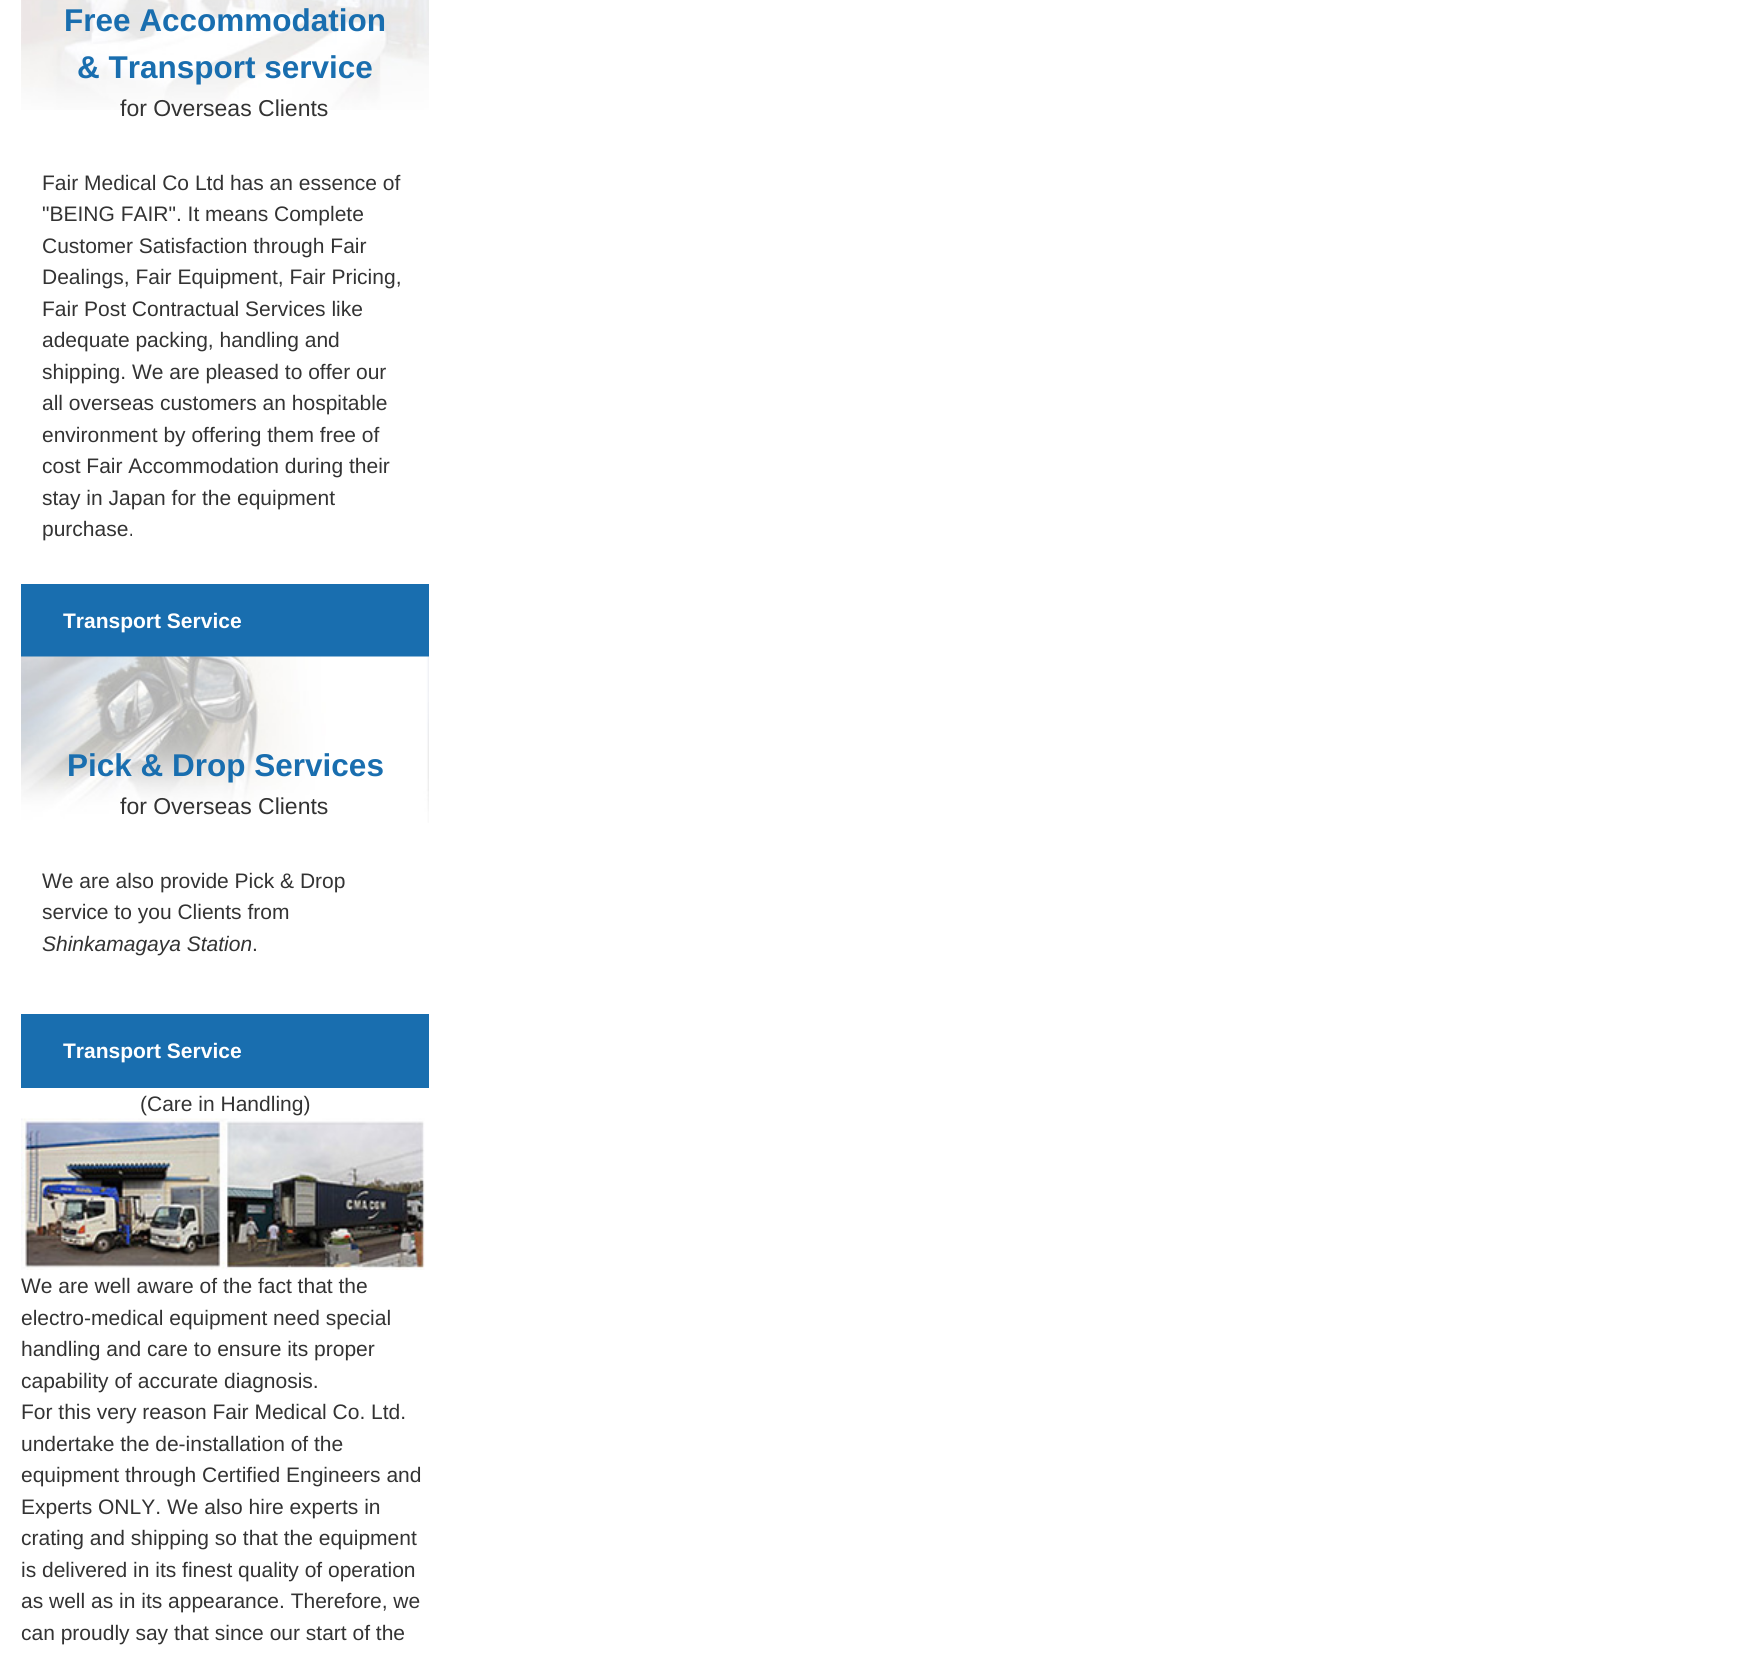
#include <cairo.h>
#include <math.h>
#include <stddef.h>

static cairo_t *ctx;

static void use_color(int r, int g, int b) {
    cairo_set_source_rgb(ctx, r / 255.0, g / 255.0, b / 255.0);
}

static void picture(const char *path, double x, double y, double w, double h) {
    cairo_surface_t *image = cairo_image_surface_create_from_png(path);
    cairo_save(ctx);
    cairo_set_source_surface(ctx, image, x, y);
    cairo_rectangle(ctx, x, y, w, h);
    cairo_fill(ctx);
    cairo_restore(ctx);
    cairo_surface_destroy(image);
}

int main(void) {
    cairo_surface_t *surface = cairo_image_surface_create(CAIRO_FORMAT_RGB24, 1742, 1656);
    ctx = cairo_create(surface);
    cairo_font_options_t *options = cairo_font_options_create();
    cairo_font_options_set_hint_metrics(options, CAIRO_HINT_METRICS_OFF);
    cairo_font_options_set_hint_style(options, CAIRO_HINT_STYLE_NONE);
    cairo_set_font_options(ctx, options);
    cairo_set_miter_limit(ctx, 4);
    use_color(255, 255, 255);
    cairo_paint(ctx);
    picture("img1.png", 21, 0, 408, 110);
    cairo_select_font_face(ctx, "Liberation Sans", CAIRO_FONT_SLANT_NORMAL, CAIRO_FONT_WEIGHT_BOLD);
    cairo_set_font_size(ctx, 31.5);
    use_color(25, 110, 175);
    cairo_move_to(ctx, 64, 31);
    cairo_show_text(ctx, "Free Accommodation");
    cairo_move_to(ctx, 77, 78);
    cairo_show_text(ctx, "& Transport service");
    cairo_select_font_face(ctx, "Liberation Sans", CAIRO_FONT_SLANT_NORMAL, CAIRO_FONT_WEIGHT_NORMAL);
    cairo_set_font_size(ctx, 23);
    use_color(51, 51, 51);
    cairo_move_to(ctx, 120, 116);
    cairo_show_text(ctx, "for Overseas Clients");
    cairo_set_font_size(ctx, 21);
    cairo_move_to(ctx, 42, 190);
    cairo_show_text(ctx, "Fair Medical Co Ltd has an essence of");
    cairo_move_to(ctx, 42, 221);
    cairo_show_text(ctx, "\"BEING FAIR\". It means Complete");
    cairo_move_to(ctx, 42, 253);
    cairo_show_text(ctx, "Customer Satisfaction through Fair");
    cairo_move_to(ctx, 42, 284);
    cairo_show_text(ctx, "Dealings, Fair Equipment, Fair Pricing,");
    cairo_move_to(ctx, 42, 316);
    cairo_show_text(ctx, "Fair Post Contractual Services like");
    cairo_move_to(ctx, 42, 347);
    cairo_show_text(ctx, "adequate packing, handling and");
    cairo_move_to(ctx, 42, 379);
    cairo_show_text(ctx, "shipping. We are pleased to offer our");
    cairo_move_to(ctx, 42, 410);
    cairo_show_text(ctx, "all overseas customers an hospitable");
    cairo_move_to(ctx, 42, 442);
    cairo_show_text(ctx, "environment by offering them free of");
    cairo_move_to(ctx, 42, 473);
    cairo_show_text(ctx, "cost Fair Accommodation during their");
    cairo_move_to(ctx, 42, 505);
    cairo_show_text(ctx, "stay in Japan for the equipment");
    cairo_move_to(ctx, 42, 536);
    cairo_show_text(ctx, "purchase.");
    use_color(25, 110, 175);
    cairo_rectangle(ctx, 21, 584, 408, 73);
    cairo_fill(ctx);
    cairo_select_font_face(ctx, "Liberation Sans", CAIRO_FONT_SLANT_NORMAL, CAIRO_FONT_WEIGHT_BOLD);
    use_color(255, 255, 255);
    cairo_move_to(ctx, 63, 628);
    cairo_show_text(ctx, "Transport Service");
    picture("img2.png", 21, 656, 408, 167);
    cairo_set_font_size(ctx, 31.5);
    use_color(25, 110, 175);
    cairo_move_to(ctx, 67, 776);
    cairo_show_text(ctx, "Pick & Drop Services");
    cairo_select_font_face(ctx, "Liberation Sans", CAIRO_FONT_SLANT_NORMAL, CAIRO_FONT_WEIGHT_NORMAL);
    cairo_set_font_size(ctx, 23);
    use_color(51, 51, 51);
    cairo_move_to(ctx, 120, 814);
    cairo_show_text(ctx, "for Overseas Clients");
    cairo_set_font_size(ctx, 21);
    cairo_move_to(ctx, 42, 888);
    cairo_show_text(ctx, "We are also provide Pick & Drop");
    cairo_move_to(ctx, 42, 919);
    cairo_show_text(ctx, "service to you Clients from");
    cairo_select_font_face(ctx, "Liberation Sans", CAIRO_FONT_SLANT_ITALIC, CAIRO_FONT_WEIGHT_NORMAL);
    cairo_move_to(ctx, 42, 951);
    cairo_show_text(ctx, "Shinkamagaya Station");
    cairo_select_font_face(ctx, "Liberation Sans", CAIRO_FONT_SLANT_NORMAL, CAIRO_FONT_WEIGHT_NORMAL);
    cairo_move_to(ctx, 252, 951);
    cairo_show_text(ctx, ".");
    use_color(25, 110, 175);
    cairo_rectangle(ctx, 21, 1014, 408, 74);
    cairo_fill(ctx);
    cairo_select_font_face(ctx, "Liberation Sans", CAIRO_FONT_SLANT_NORMAL, CAIRO_FONT_WEIGHT_BOLD);
    use_color(255, 255, 255);
    cairo_move_to(ctx, 63, 1058);
    cairo_show_text(ctx, "Transport Service");
    cairo_select_font_face(ctx, "Liberation Sans", CAIRO_FONT_SLANT_NORMAL, CAIRO_FONT_WEIGHT_NORMAL);
    use_color(51, 51, 51);
    cairo_move_to(ctx, 140, 1111);
    cairo_show_text(ctx, "(Care in Handling)");
    picture("img3.png", 21, 1118, 404, 152);
    cairo_move_to(ctx, 21, 1293);
    cairo_show_text(ctx, "We are well aware of the fact that the");
    cairo_move_to(ctx, 21, 1325);
    cairo_show_text(ctx, "electro-medical equipment need special");
    cairo_move_to(ctx, 21, 1356);
    cairo_show_text(ctx, "handling and care to ensure its proper");
    cairo_move_to(ctx, 21, 1388);
    cairo_show_text(ctx, "capability of accurate diagnosis.");
    cairo_move_to(ctx, 21, 1419);
    cairo_show_text(ctx, "For this very reason Fair Medical Co. Ltd.");
    cairo_move_to(ctx, 21, 1451);
    cairo_show_text(ctx, "undertake the de-installation of the");
    cairo_move_to(ctx, 21, 1482);
    cairo_show_text(ctx, "equipment through Certified Engineers and");
    cairo_move_to(ctx, 21, 1514);
    cairo_show_text(ctx, "Experts ONLY. We also hire experts in");
    cairo_move_to(ctx, 21, 1545);
    cairo_show_text(ctx, "crating and shipping so that the equipment");
    cairo_move_to(ctx, 21, 1577);
    cairo_show_text(ctx, "is delivered in its finest quality of operation");
    cairo_move_to(ctx, 21, 1608);
    cairo_show_text(ctx, "as well as in its appearance. Therefore, we");
    cairo_move_to(ctx, 21, 1640);
    cairo_show_text(ctx, "can proudly say that since our start of the");
    cairo_surface_write_to_png(surface, "result.png");
    cairo_font_options_destroy(options);
    cairo_destroy(ctx);
    cairo_surface_destroy(surface);
    return 0;
}
